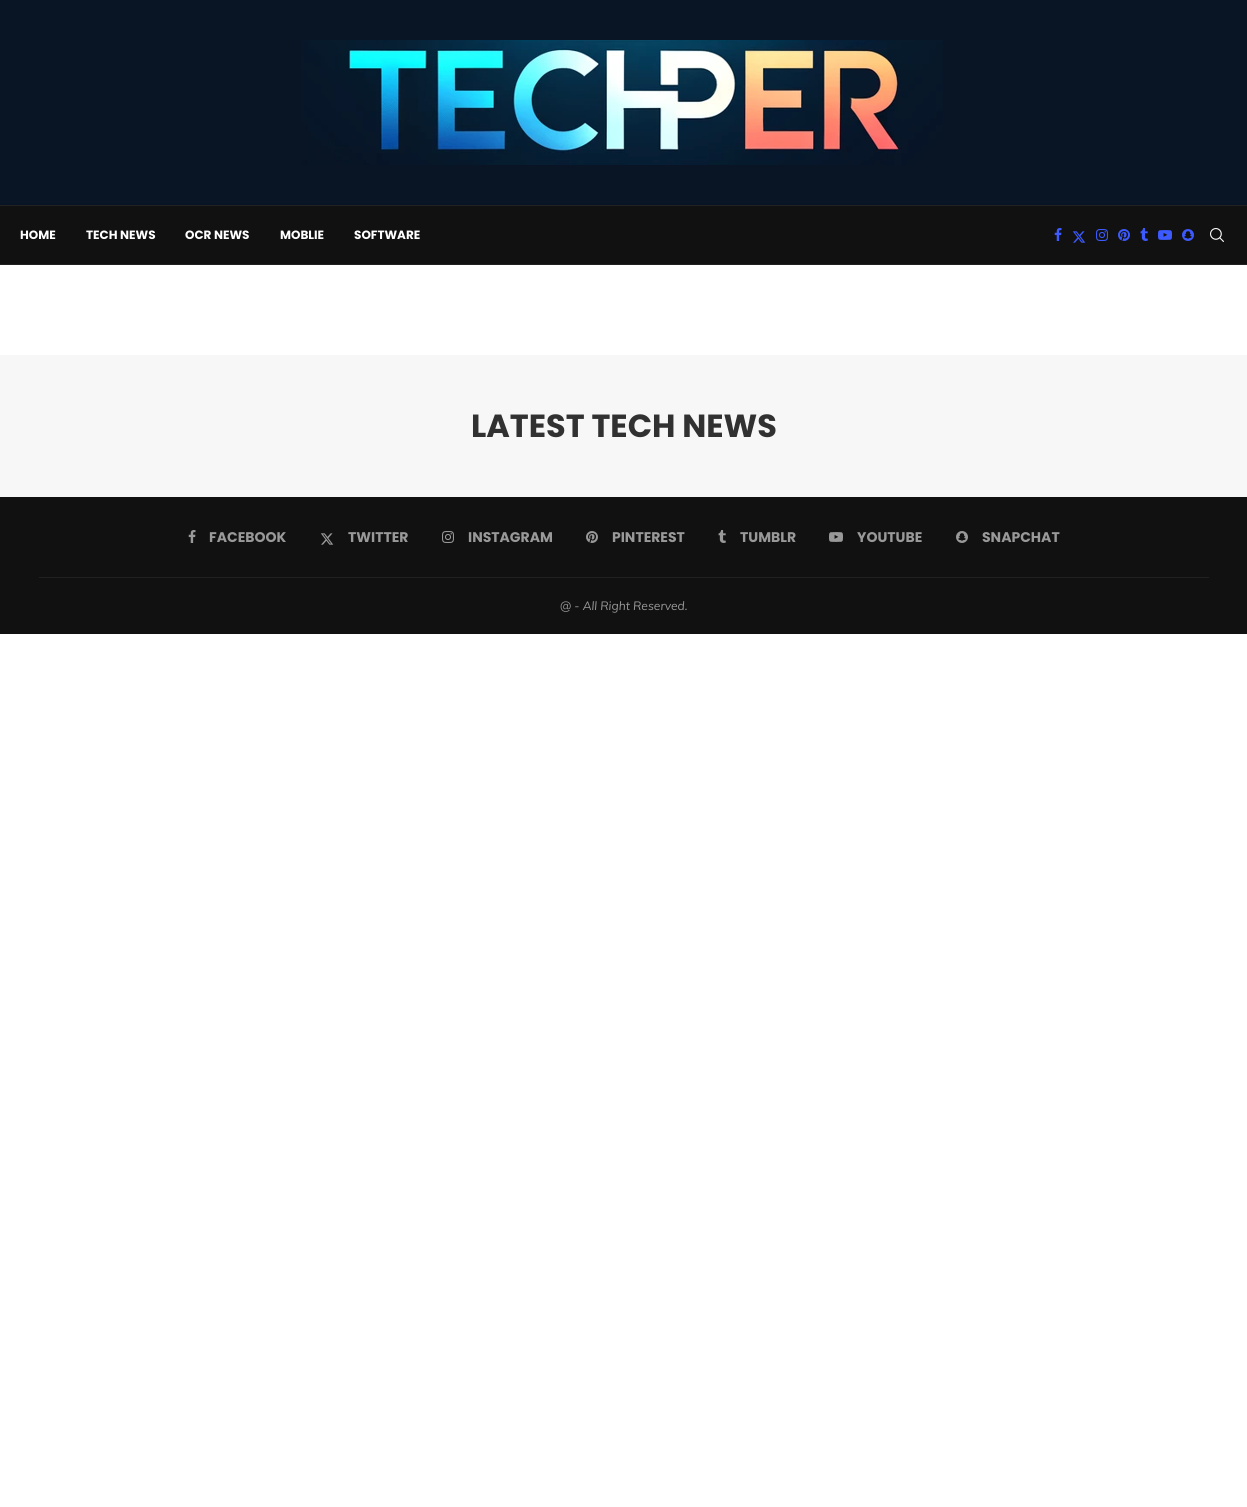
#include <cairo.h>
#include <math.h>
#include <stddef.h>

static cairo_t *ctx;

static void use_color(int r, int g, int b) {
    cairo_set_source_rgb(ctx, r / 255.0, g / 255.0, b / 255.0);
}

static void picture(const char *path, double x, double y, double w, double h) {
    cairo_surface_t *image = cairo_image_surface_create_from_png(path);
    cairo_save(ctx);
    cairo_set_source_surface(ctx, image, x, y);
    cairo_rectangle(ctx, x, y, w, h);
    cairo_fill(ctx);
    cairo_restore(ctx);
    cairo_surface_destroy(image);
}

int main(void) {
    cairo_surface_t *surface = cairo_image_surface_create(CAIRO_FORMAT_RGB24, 1247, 1507);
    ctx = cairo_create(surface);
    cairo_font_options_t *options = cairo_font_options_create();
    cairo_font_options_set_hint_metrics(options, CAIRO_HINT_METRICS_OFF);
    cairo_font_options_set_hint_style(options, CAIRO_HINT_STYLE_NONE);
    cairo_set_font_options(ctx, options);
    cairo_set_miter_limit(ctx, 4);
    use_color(255, 255, 255);
    cairo_paint(ctx);
    use_color(9, 20, 37);
    cairo_rectangle(ctx, 0, 0, 1247, 205);
    cairo_fill(ctx);
    picture("img1.png", 301, 40, 642, 125);
    use_color(17, 17, 17);
    cairo_rectangle(ctx, 0, 206, 1247, 58);
    cairo_fill(ctx);
    use_color(33, 33, 33);
    cairo_rectangle(ctx, 0, 205, 1247, 1);
    cairo_fill(ctx);
    cairo_rectangle(ctx, 0, 264, 1247, 1);
    cairo_fill(ctx);
    cairo_select_font_face(ctx, "Poppins", CAIRO_FONT_SLANT_NORMAL, CAIRO_FONT_WEIGHT_BOLD);
    cairo_set_font_size(ctx, 12);
    use_color(255, 255, 255);
    cairo_move_to(ctx, 20, 239);
    cairo_show_text(ctx, "HOME");
    cairo_move_to(ctx, 86, 239);
    cairo_show_text(ctx, "TECH NEWS");
    cairo_move_to(ctx, 185, 239);
    cairo_show_text(ctx, "OCR NEWS");
    cairo_move_to(ctx, 280, 239);
    cairo_show_text(ctx, "MOBLIE");
    cairo_move_to(ctx, 354, 239);
    cairo_show_text(ctx, "SOFTWARE");
    picture("img2.png", 1054, 228, 8, 13);
    picture("img3.png", 1072, 231, 14, 12);
    picture("img4.png", 1096, 229, 12, 12);
    picture("img5.png", 1118, 229, 12, 12);
    picture("img6.png", 1140, 228, 8, 13);
    picture("img7.png", 1158, 230, 14, 10);
    picture("img8.png", 1182, 229, 12, 12);
    picture("img9.png", 1210, 228, 14, 14);
    use_color(247, 247, 247);
    cairo_rectangle(ctx, 0, 355, 1247, 142);
    cairo_fill(ctx);
    cairo_set_font_size(ctx, 32);
    use_color(49, 49, 49);
    cairo_move_to(ctx, 471, 437);
    cairo_show_text(ctx, "LATEST TECH NEWS");
    use_color(17, 17, 17);
    cairo_rectangle(ctx, 0, 497, 1247, 137);
    cairo_fill(ctx);
    use_color(33, 33, 33);
    cairo_rectangle(ctx, 39, 577, 1170, 1);
    cairo_fill(ctx);
    picture("img10.png", 188, 530, 8, 13);
    cairo_set_font_size(ctx, 14);
    use_color(153, 153, 153);
    cairo_move_to(ctx, 209, 542);
    cairo_show_text(ctx, "FACEBOOK");
    picture("img11.png", 320, 533, 14, 12);
    cairo_move_to(ctx, 348, 542);
    cairo_show_text(ctx, "TWITTER");
    picture("img12.png", 442, 531, 12, 12);
    cairo_move_to(ctx, 468, 542);
    cairo_show_text(ctx, "INSTAGRAM");
    picture("img13.png", 586, 531, 12, 12);
    cairo_move_to(ctx, 612, 542);
    cairo_show_text(ctx, "PINTEREST");
    picture("img14.png", 718, 530, 8, 13);
    cairo_move_to(ctx, 740, 542);
    cairo_show_text(ctx, "TUMBLR");
    picture("img15.png", 829, 532, 14, 10);
    cairo_move_to(ctx, 857, 542);
    cairo_show_text(ctx, "YOUTUBE");
    picture("img16.png", 956, 531, 12, 12);
    cairo_move_to(ctx, 982, 542);
    cairo_show_text(ctx, "SNAPCHAT");
    cairo_select_font_face(ctx, "Muli", CAIRO_FONT_SLANT_ITALIC, CAIRO_FONT_WEIGHT_NORMAL);
    cairo_set_font_size(ctx, 12);
    cairo_move_to(ctx, 560, 610);
    cairo_show_text(ctx, "@ - All Right Reserved.");
    cairo_surface_write_to_png(surface, "result.png");
    cairo_font_options_destroy(options);
    cairo_destroy(ctx);
    cairo_surface_destroy(surface);
    return 0;
}
